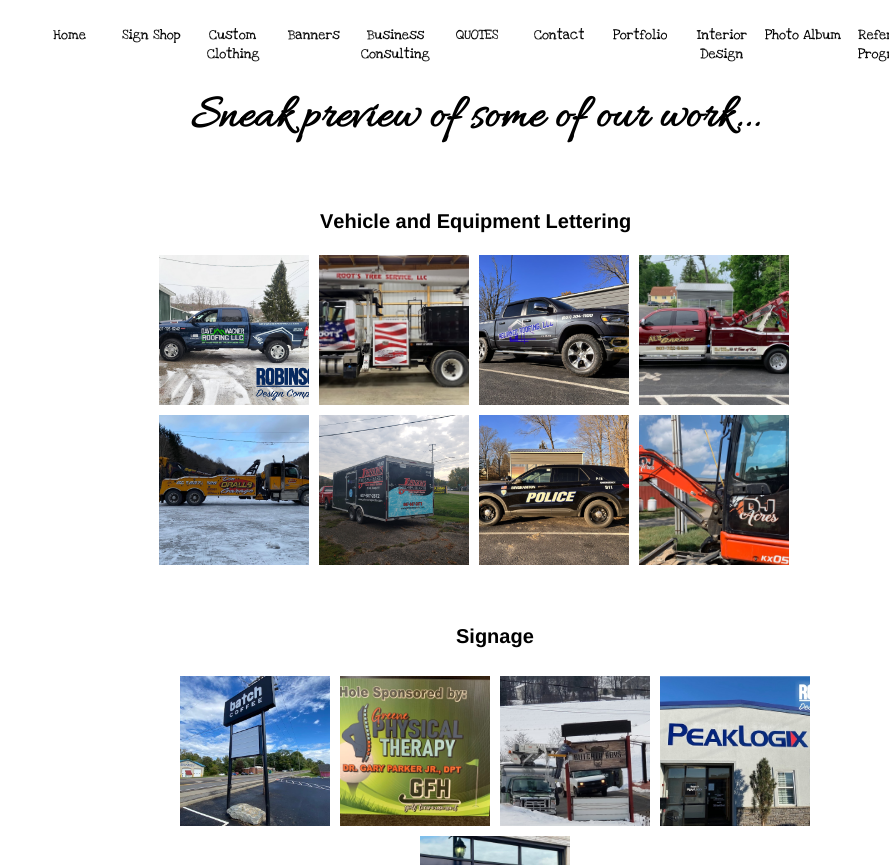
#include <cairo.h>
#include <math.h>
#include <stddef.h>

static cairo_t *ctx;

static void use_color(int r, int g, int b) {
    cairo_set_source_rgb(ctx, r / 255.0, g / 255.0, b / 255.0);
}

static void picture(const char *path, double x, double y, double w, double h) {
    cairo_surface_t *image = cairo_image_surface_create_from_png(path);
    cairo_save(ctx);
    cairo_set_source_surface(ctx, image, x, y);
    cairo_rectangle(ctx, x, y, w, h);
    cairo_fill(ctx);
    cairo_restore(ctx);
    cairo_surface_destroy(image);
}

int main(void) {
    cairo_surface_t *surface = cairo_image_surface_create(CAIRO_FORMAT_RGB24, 889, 865);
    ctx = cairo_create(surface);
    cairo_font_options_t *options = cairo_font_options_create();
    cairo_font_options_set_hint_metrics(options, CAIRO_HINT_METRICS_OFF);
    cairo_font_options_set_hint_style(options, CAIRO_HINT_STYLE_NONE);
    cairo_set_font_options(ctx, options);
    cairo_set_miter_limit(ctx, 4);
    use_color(255, 255, 255);
    cairo_paint(ctx);
    cairo_select_font_face(ctx, "Love Ya Like A Sister", CAIRO_FONT_SLANT_NORMAL, CAIRO_FONT_WEIGHT_NORMAL);
    cairo_set_font_size(ctx, 14);
    use_color(0, 0, 0);
    cairo_move_to(ctx, 53, 39);
    cairo_show_text(ctx, "Home");
    cairo_move_to(ctx, 122, 39);
    cairo_show_text(ctx, "Sign Shop");
    cairo_move_to(ctx, 209, 39);
    cairo_show_text(ctx, "Custom");
    cairo_move_to(ctx, 207, 58);
    cairo_show_text(ctx, "Clothing");
    cairo_move_to(ctx, 288, 39);
    cairo_show_text(ctx, "Banners");
    cairo_move_to(ctx, 367, 39);
    cairo_show_text(ctx, "Business");
    cairo_move_to(ctx, 361, 58);
    cairo_show_text(ctx, "Consulting");
    cairo_move_to(ctx, 456, 39);
    cairo_show_text(ctx, "QUOTES");
    cairo_move_to(ctx, 534, 39);
    cairo_show_text(ctx, "Contact");
    cairo_move_to(ctx, 613, 39);
    cairo_show_text(ctx, "Portfolio");
    cairo_move_to(ctx, 697, 39);
    cairo_show_text(ctx, "Interior");
    cairo_move_to(ctx, 700, 58);
    cairo_show_text(ctx, "Design");
    cairo_move_to(ctx, 765, 39);
    cairo_show_text(ctx, "Photo Album");
    cairo_move_to(ctx, 858, 39);
    cairo_show_text(ctx, "Refer");
    cairo_move_to(ctx, 858, 58);
    cairo_show_text(ctx, "Progr");
    cairo_select_font_face(ctx, "Allura", CAIRO_FONT_SLANT_NORMAL, CAIRO_FONT_WEIGHT_BOLD);
    cairo_set_font_size(ctx, 48);
    cairo_move_to(ctx, 191, 126);
    cairo_show_text(ctx, "Sneak preview of some of our work...");
    cairo_select_font_face(ctx, "Liberation Sans", CAIRO_FONT_SLANT_NORMAL, CAIRO_FONT_WEIGHT_BOLD);
    cairo_set_font_size(ctx, 20);
    cairo_move_to(ctx, 320, 228);
    cairo_show_text(ctx, "Vehicle and Equipment Lettering");
    picture("img1.png", 159, 255, 150, 150);
    picture("img2.png", 319, 255, 150, 150);
    picture("img3.png", 479, 255, 150, 150);
    picture("img4.png", 639, 255, 150, 150);
    picture("img5.png", 159, 415, 150, 150);
    picture("img6.png", 319, 415, 150, 150);
    picture("img7.png", 479, 415, 150, 150);
    picture("img8.png", 639, 415, 150, 150);
    cairo_move_to(ctx, 456, 643);
    cairo_show_text(ctx, "Signage");
    picture("img9.png", 180, 676, 150, 150);
    picture("img10.png", 340, 676, 150, 150);
    picture("img11.png", 500, 676, 150, 150);
    picture("img12.png", 660, 676, 150, 150);
    picture("img13.png", 420, 836, 150, 29);
    cairo_surface_write_to_png(surface, "result.png");
    cairo_font_options_destroy(options);
    cairo_destroy(ctx);
    cairo_surface_destroy(surface);
    return 0;
}
